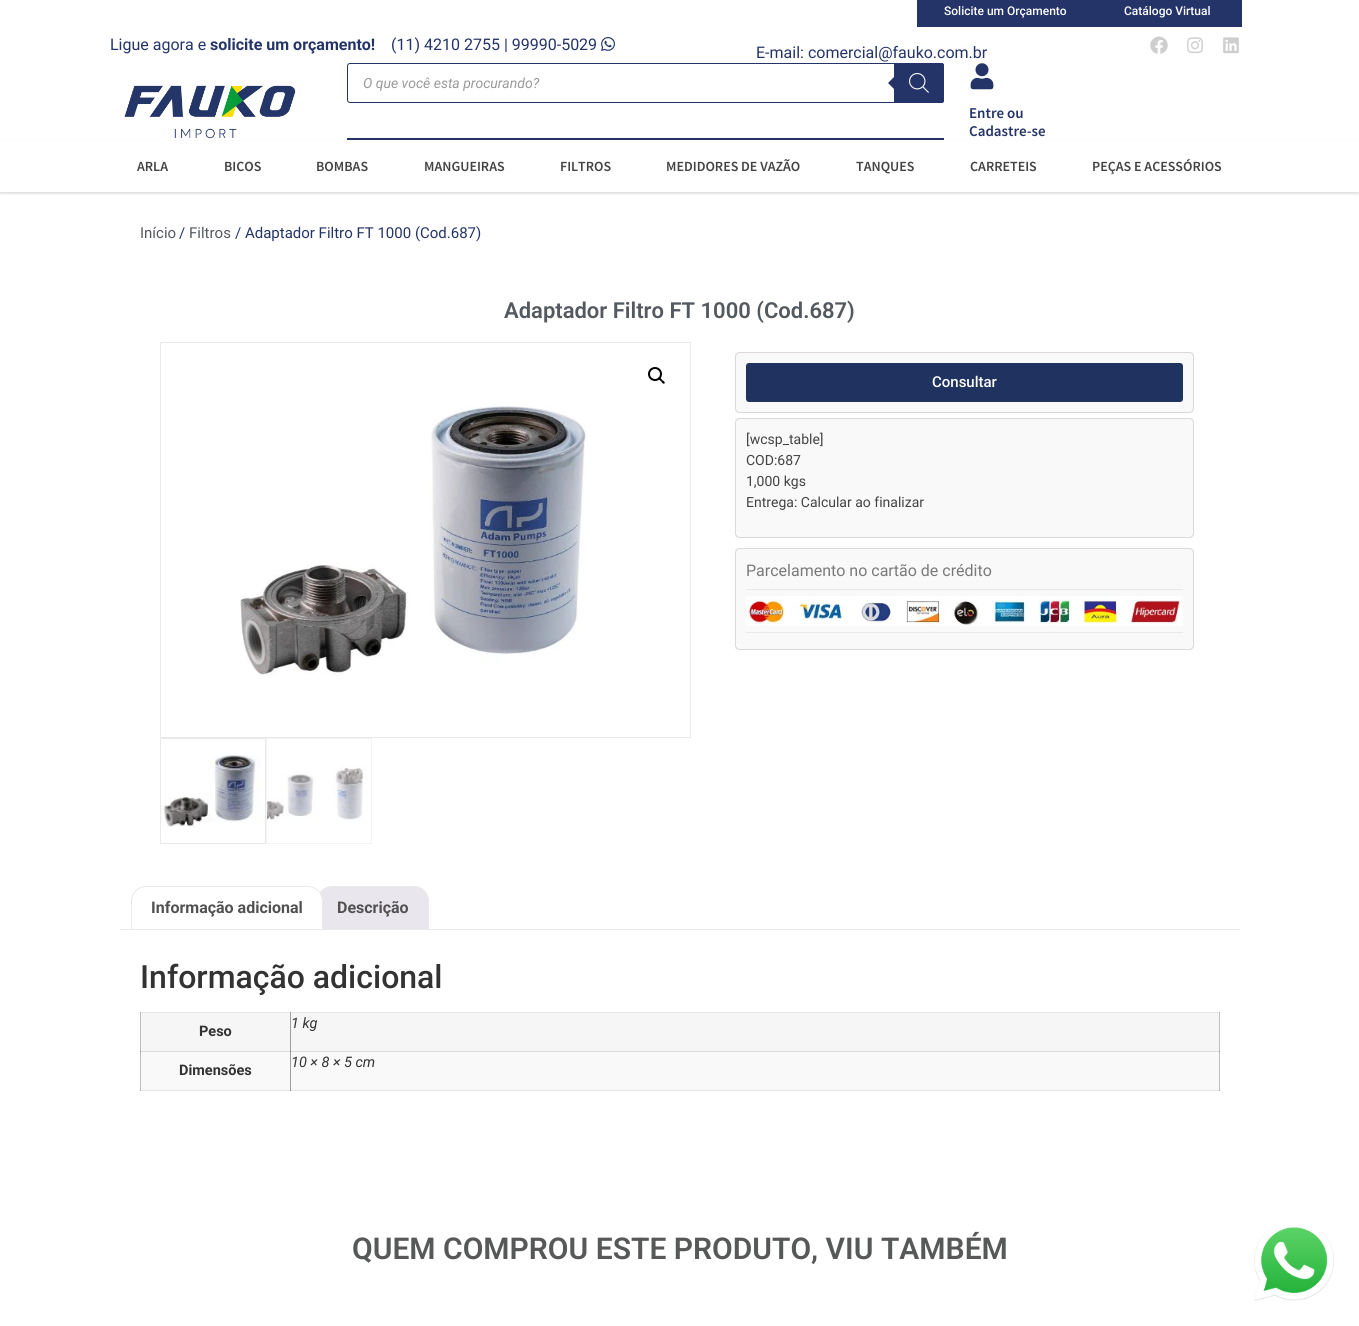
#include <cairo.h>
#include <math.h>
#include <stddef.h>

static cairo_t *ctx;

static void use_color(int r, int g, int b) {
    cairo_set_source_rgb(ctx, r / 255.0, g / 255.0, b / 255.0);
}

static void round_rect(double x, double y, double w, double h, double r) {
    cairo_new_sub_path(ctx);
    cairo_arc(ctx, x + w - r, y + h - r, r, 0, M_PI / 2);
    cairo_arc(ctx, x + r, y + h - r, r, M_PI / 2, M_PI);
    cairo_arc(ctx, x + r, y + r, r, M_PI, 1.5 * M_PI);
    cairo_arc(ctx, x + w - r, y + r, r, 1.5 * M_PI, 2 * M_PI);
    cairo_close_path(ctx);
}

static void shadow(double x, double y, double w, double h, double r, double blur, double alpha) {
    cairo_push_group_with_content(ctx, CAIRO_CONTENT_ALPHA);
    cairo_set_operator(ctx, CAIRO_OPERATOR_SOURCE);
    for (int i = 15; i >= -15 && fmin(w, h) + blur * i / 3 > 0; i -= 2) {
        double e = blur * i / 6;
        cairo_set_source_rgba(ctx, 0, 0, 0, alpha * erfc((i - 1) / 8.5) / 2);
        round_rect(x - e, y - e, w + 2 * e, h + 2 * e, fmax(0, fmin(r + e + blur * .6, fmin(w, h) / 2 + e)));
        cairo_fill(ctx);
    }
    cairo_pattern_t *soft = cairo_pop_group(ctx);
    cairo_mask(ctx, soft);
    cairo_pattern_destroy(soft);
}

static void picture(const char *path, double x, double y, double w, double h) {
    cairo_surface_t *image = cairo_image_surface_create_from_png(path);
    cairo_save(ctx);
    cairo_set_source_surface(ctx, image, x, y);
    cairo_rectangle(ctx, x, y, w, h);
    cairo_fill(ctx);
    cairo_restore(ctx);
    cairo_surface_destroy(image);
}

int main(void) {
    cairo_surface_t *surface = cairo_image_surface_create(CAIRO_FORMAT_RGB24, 1359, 1326);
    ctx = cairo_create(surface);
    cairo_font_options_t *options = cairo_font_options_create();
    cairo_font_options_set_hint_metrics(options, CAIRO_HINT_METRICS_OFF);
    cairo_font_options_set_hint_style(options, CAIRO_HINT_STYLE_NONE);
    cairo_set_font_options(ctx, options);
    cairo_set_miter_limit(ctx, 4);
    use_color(255, 255, 255);
    cairo_paint(ctx);
    use_color(192, 192, 192);
    cairo_rectangle(ctx, 1219, 1012, 1, 40);
    cairo_fill(ctx);
    use_color(230, 230, 230);
    cairo_rectangle(ctx, 140, 1090, 1080, 1);
    cairo_fill(ctx);
    use_color(179, 179, 179);
    cairo_rectangle(ctx, 140, 1090, 1, 1);
    cairo_fill(ctx);
    use_color(139, 139, 139);
    cairo_rectangle(ctx, 290, 1090, 1, 1);
    cairo_fill(ctx);
    use_color(36, 52, 104);
    cairo_rectangle(ctx, 917, 0, 325, 27);
    cairo_fill(ctx);
    cairo_select_font_face(ctx, "Roboto Medium", CAIRO_FONT_SLANT_NORMAL, CAIRO_FONT_WEIGHT_NORMAL);
    cairo_set_font_size(ctx, 12);
    use_color(255, 255, 255);
    cairo_move_to(ctx, 944, 15);
    cairo_show_text(ctx, "Solicite um Orçamento");
    cairo_move_to(ctx, 1124, 15);
    cairo_show_text(ctx, "Catálogo Virtual");
    cairo_select_font_face(ctx, "Roboto", CAIRO_FONT_SLANT_NORMAL, CAIRO_FONT_WEIGHT_NORMAL);
    cairo_set_font_size(ctx, 16);
    use_color(36, 52, 104);
    cairo_move_to(ctx, 110, 50);
    cairo_show_text(ctx, "Ligue agora e");
    cairo_select_font_face(ctx, "Roboto", CAIRO_FONT_SLANT_NORMAL, CAIRO_FONT_WEIGHT_BOLD);
    cairo_move_to(ctx, 210, 50);
    cairo_show_text(ctx, "solicite um orçamento!");
    cairo_select_font_face(ctx, "Roboto", CAIRO_FONT_SLANT_NORMAL, CAIRO_FONT_WEIGHT_NORMAL);
    cairo_move_to(ctx, 391, 50);
    cairo_show_text(ctx, "(11) 4210 2755 | 99990-5029");
    picture("img1.png", 601, 37, 14, 14);
    cairo_move_to(ctx, 756, 58);
    cairo_show_text(ctx, "E-mail: comercial@fauko.com.br");
    picture("img2.png", 1150, 36, 18, 18);
    picture("img3.png", 1187, 37, 16, 17);
    picture("img4.png", 1223, 37, 16, 17);
    picture("img5.png", 124, 85, 172, 54);
    cairo_rectangle(ctx, 347, 138, 597, 2);
    cairo_fill(ctx);
    round_rect(347.5, 63.5, 596, 39, 2.5);
    cairo_set_line_width(ctx, 1);
    cairo_stroke(ctx);
    cairo_select_font_face(ctx, "Roboto", CAIRO_FONT_SLANT_ITALIC, CAIRO_FONT_WEIGHT_NORMAL);
    cairo_set_font_size(ctx, 14);
    use_color(153, 153, 153);
    cairo_move_to(ctx, 363, 88);
    cairo_show_text(ctx, "O que você esta procurando?");
    use_color(36, 52, 104);
    cairo_new_path(ctx);
    cairo_move_to(ctx, 894, 63);
    cairo_line_to(ctx, 942, 63);
    cairo_curve_to(ctx, 943, 63, 944, 64, 944, 65);
    cairo_line_to(ctx, 944, 101);
    cairo_curve_to(ctx, 944, 102, 943, 103, 942, 103);
    cairo_line_to(ctx, 894, 103);
    cairo_close_path(ctx);
    cairo_fill(ctx);
    cairo_new_path(ctx);
    cairo_move_to(ctx, 896, 75);
    cairo_line_to(ctx, 896, 91);
    cairo_line_to(ctx, 888, 83);
    cairo_close_path(ctx);
    cairo_fill(ctx);
    picture("img6.png", 909, 73, 20, 20);
    picture("img7.png", 970, 63, 24, 27);
    cairo_select_font_face(ctx, "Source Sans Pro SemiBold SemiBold", CAIRO_FONT_SLANT_NORMAL, CAIRO_FONT_WEIGHT_NORMAL);
    cairo_set_font_size(ctx, 15);
    cairo_move_to(ctx, 969, 118);
    cairo_show_text(ctx, "Entre ou");
    cairo_move_to(ctx, 969, 136);
    cairo_show_text(ctx, "Cadastre-se");
    use_color(0, 0, 0);
    shadow(0, 142, 1359, 52, 0, 1, 0.12);
    use_color(255, 255, 255);
    cairo_rectangle(ctx, 0, 141, 1359, 51);
    cairo_fill(ctx);
    cairo_set_font_size(ctx, 14);
    use_color(67, 67, 67);
    cairo_move_to(ctx, 137, 171);
    cairo_show_text(ctx, "ARLA");
    cairo_move_to(ctx, 224, 171);
    cairo_show_text(ctx, "BICOS");
    cairo_move_to(ctx, 316, 171);
    cairo_show_text(ctx, "BOMBAS");
    cairo_move_to(ctx, 424, 171);
    cairo_show_text(ctx, "MANGUEIRAS");
    cairo_move_to(ctx, 560, 171);
    cairo_show_text(ctx, "FILTROS");
    cairo_move_to(ctx, 666, 171);
    cairo_show_text(ctx, "MEDIDORES DE VAZÃO");
    cairo_move_to(ctx, 856, 171);
    cairo_show_text(ctx, "TANQUES");
    cairo_move_to(ctx, 970, 171);
    cairo_show_text(ctx, "CARRETEIS");
    cairo_move_to(ctx, 1092, 171);
    cairo_show_text(ctx, "PEÇAS E ACESSÓRIOS");
    cairo_select_font_face(ctx, "Roboto", CAIRO_FONT_SLANT_NORMAL, CAIRO_FONT_WEIGHT_NORMAL);
    cairo_set_font_size(ctx, 15);
    use_color(84, 89, 95);
    cairo_move_to(ctx, 140, 238);
    cairo_show_text(ctx, "Início");
    use_color(36, 52, 104);
    cairo_move_to(ctx, 179, 238);
    cairo_show_text(ctx, "/");
    use_color(84, 89, 95);
    cairo_move_to(ctx, 189, 238);
    cairo_show_text(ctx, "Filtros");
    use_color(36, 52, 104);
    cairo_move_to(ctx, 235, 238);
    cairo_show_text(ctx, "/ Adaptador Filtro FT 1000 (Cod.687)");
    cairo_select_font_face(ctx, "Roboto SemiBold", CAIRO_FONT_SLANT_NORMAL, CAIRO_FONT_WEIGHT_NORMAL);
    cairo_set_font_size(ctx, 22);
    use_color(84, 89, 95);
    cairo_move_to(ctx, 504, 318);
    cairo_show_text(ctx, "Adaptador Filtro FT 1000 (Cod.687)");
    round_rect(160.5, 342.5, 530, 395, 0.5);
    use_color(233, 233, 233);
    cairo_stroke(ctx);
    picture("img8.png", 240, 406, 348, 270);
    cairo_arc(ctx, 655, 374, 6, 0, 2 * M_PI);
    use_color(0, 0, 0);
    cairo_set_line_width(ctx, 2);
    cairo_stroke(ctx);
    cairo_new_path(ctx);
    cairo_move_to(ctx, 658.5, 377.5);
    cairo_curve_to(ctx, 660, 376.5, 661.5, 379, 662, 380);
    cairo_curve_to(ctx, 663, 380.5, 665.5, 382, 664.5, 383.5);
    cairo_curve_to(ctx, 663, 384.5, 661.5, 382, 661, 381);
    cairo_curve_to(ctx, 660, 380.5, 657.5, 379, 658.5, 377.5);
    cairo_close_path(ctx);
    cairo_fill(ctx);
    cairo_rectangle(ctx, 160.5, 738.5, 105, 105);
    use_color(233, 233, 233);
    cairo_set_line_width(ctx, 1);
    cairo_stroke(ctx);
    picture("img9.png", 161, 755, 100, 72);
    cairo_rectangle(ctx, 266.5, 738.5, 105, 105);
    use_color(244, 244, 244);
    cairo_stroke(ctx);
    picture("img10.png", 267, 764, 100, 58);
    use_color(249, 249, 249);
    cairo_rectangle(ctx, 735, 352, 459, 61);
    cairo_fill(ctx);
    round_rect(735.5, 352.5, 458, 60, 4.5);
    use_color(221, 215, 215);
    cairo_stroke(ctx);
    use_color(31, 50, 96);
    round_rect(746, 363, 437, 39, 3);
    cairo_fill(ctx);
    cairo_select_font_face(ctx, "Roboto Medium", CAIRO_FONT_SLANT_NORMAL, CAIRO_FONT_WEIGHT_NORMAL);
    cairo_set_font_size(ctx, 15);
    use_color(255, 255, 255);
    cairo_move_to(ctx, 932, 387);
    cairo_show_text(ctx, "Consultar");
    use_color(249, 249, 249);
    cairo_rectangle(ctx, 735, 418, 459, 120);
    cairo_fill(ctx);
    round_rect(735.5, 418.5, 458, 119, 4.5);
    use_color(221, 215, 215);
    cairo_stroke(ctx);
    cairo_select_font_face(ctx, "Roboto", CAIRO_FONT_SLANT_NORMAL, CAIRO_FONT_WEIGHT_NORMAL);
    cairo_set_font_size(ctx, 14);
    use_color(67, 67, 67);
    cairo_move_to(ctx, 746, 444);
    cairo_show_text(ctx, "[wcsp_table]");
    cairo_move_to(ctx, 746, 465);
    cairo_show_text(ctx, "COD:687");
    cairo_move_to(ctx, 746, 486);
    cairo_show_text(ctx, "1,000 kgs");
    cairo_move_to(ctx, 746, 507);
    cairo_show_text(ctx, "Entrega: Calcular ao finalizar");
    use_color(249, 249, 249);
    cairo_rectangle(ctx, 735, 548, 459, 102);
    cairo_fill(ctx);
    round_rect(735.5, 548.5, 458, 101, 4.5);
    use_color(221, 215, 215);
    cairo_stroke(ctx);
    cairo_set_font_size(ctx, 16);
    use_color(122, 122, 122);
    cairo_move_to(ctx, 746, 576);
    cairo_show_text(ctx, "Parcelamento no cartão de crédito");
    use_color(233, 233, 233);
    cairo_rectangle(ctx, 746, 589, 437, 1);
    cairo_fill(ctx);
    picture("img11.png", 746, 596, 437, 30);
    cairo_rectangle(ctx, 746, 632, 437, 1);
    cairo_fill(ctx);
    cairo_rectangle(ctx, 120, 929, 1120, 1);
    cairo_fill(ctx);
    use_color(233, 230, 237);
    cairo_new_path(ctx);
    cairo_move_to(ctx, 332, 886.5);
    cairo_line_to(ctx, 414, 886.5);
    cairo_curve_to(ctx, 422, 886.5, 428.5, 893, 428.5, 901);
    cairo_line_to(ctx, 428.5, 929.5);
    cairo_line_to(ctx, 317.5, 929.5);
    cairo_line_to(ctx, 317.5, 901);
    cairo_curve_to(ctx, 317.5, 893, 324, 886.5, 332, 886.5);
    cairo_close_path(ctx);
    cairo_fill_preserve(ctx);
    use_color(233, 233, 233);
    cairo_stroke(ctx);
    use_color(255, 255, 255);
    cairo_new_path(ctx);
    cairo_move_to(ctx, 146, 886.5);
    cairo_line_to(ctx, 308, 886.5);
    cairo_curve_to(ctx, 316, 886.5, 322.5, 893, 322.5, 901);
    cairo_line_to(ctx, 322.5, 929.5);
    cairo_line_to(ctx, 131.5, 929.5);
    cairo_line_to(ctx, 131.5, 901);
    cairo_curve_to(ctx, 131.5, 893, 138, 886.5, 146, 886.5);
    cairo_close_path(ctx);
    cairo_fill_preserve(ctx);
    use_color(233, 233, 233);
    cairo_stroke(ctx);
    cairo_select_font_face(ctx, "Roboto", CAIRO_FONT_SLANT_NORMAL, CAIRO_FONT_WEIGHT_BOLD);
    use_color(81, 81, 81);
    cairo_move_to(ctx, 151, 913);
    cairo_show_text(ctx, "Informação adicional");
    cairo_move_to(ctx, 337, 913);
    cairo_show_text(ctx, "Descrição");
    cairo_select_font_face(ctx, "Roboto Medium", CAIRO_FONT_SLANT_NORMAL, CAIRO_FONT_WEIGHT_NORMAL);
    cairo_set_font_size(ctx, 32);
    use_color(51, 51, 51);
    cairo_move_to(ctx, 140, 988);
    cairo_show_text(ctx, "Informação adicional");
    use_color(230, 230, 230);
    cairo_rectangle(ctx, 140, 1012, 1080, 1);
    cairo_fill(ctx);
    use_color(179, 179, 179);
    cairo_rectangle(ctx, 140, 1012, 1, 1);
    cairo_fill(ctx);
    use_color(154, 154, 154);
    cairo_rectangle(ctx, 290, 1012, 1, 1);
    cairo_fill(ctx);
    use_color(179, 179, 179);
    cairo_rectangle(ctx, 1219, 1012, 1, 1);
    cairo_fill(ctx);
    use_color(246, 246, 246);
    cairo_rectangle(ctx, 141, 1013, 149, 38);
    cairo_fill(ctx);
    use_color(187, 187, 187);
    cairo_rectangle(ctx, 140, 1013, 1, 39);
    cairo_fill(ctx);
    use_color(221, 221, 221);
    cairo_rectangle(ctx, 140, 1051, 150, 1);
    cairo_fill(ctx);
    use_color(148, 148, 148);
    cairo_rectangle(ctx, 140, 1051, 1, 1);
    cairo_fill(ctx);
    cairo_select_font_face(ctx, "Roboto", CAIRO_FONT_SLANT_NORMAL, CAIRO_FONT_WEIGHT_BOLD);
    cairo_set_font_size(ctx, 14.5);
    use_color(51, 51, 51);
    cairo_move_to(ctx, 199, 1036);
    cairo_show_text(ctx, "Peso");
    use_color(246, 246, 246);
    cairo_rectangle(ctx, 291, 1013, 928, 38);
    cairo_fill(ctx);
    use_color(158, 158, 158);
    cairo_rectangle(ctx, 290, 1013, 1, 39);
    cairo_fill(ctx);
    use_color(221, 221, 221);
    cairo_rectangle(ctx, 290, 1051, 929, 1);
    cairo_fill(ctx);
    use_color(119, 119, 119);
    cairo_rectangle(ctx, 290, 1051, 1, 1);
    cairo_fill(ctx);
    cairo_select_font_face(ctx, "Roboto", CAIRO_FONT_SLANT_ITALIC, CAIRO_FONT_WEIGHT_NORMAL);
    use_color(51, 51, 51);
    cairo_move_to(ctx, 291, 1028);
    cairo_show_text(ctx, "1 kg");
    use_color(249, 249, 249);
    cairo_rectangle(ctx, 291, 1052, 928, 38);
    cairo_fill(ctx);
    use_color(159, 159, 159);
    cairo_rectangle(ctx, 290, 1052, 1, 38);
    cairo_fill(ctx);
    use_color(192, 192, 192);
    cairo_rectangle(ctx, 1219, 1051, 1, 40);
    cairo_fill(ctx);
    use_color(144, 144, 144);
    cairo_rectangle(ctx, 1219, 1051, 1, 1);
    cairo_fill(ctx);
    use_color(173, 173, 173);
    cairo_rectangle(ctx, 1219, 1090, 1, 1);
    cairo_fill(ctx);
    use_color(51, 51, 51);
    cairo_move_to(ctx, 291, 1067);
    cairo_show_text(ctx, "10 × 8 × 5 cm");
    use_color(249, 249, 249);
    cairo_rectangle(ctx, 141, 1052, 149, 38);
    cairo_fill(ctx);
    use_color(189, 189, 189);
    cairo_rectangle(ctx, 140, 1052, 1, 38);
    cairo_fill(ctx);
    cairo_select_font_face(ctx, "Roboto", CAIRO_FONT_SLANT_NORMAL, CAIRO_FONT_WEIGHT_BOLD);
    use_color(51, 51, 51);
    cairo_move_to(ctx, 179, 1075);
    cairo_show_text(ctx, "Dimensões");
    cairo_select_font_face(ctx, "Roboto SemiBold", CAIRO_FONT_SLANT_NORMAL, CAIRO_FONT_WEIGHT_NORMAL);
    cairo_set_font_size(ctx, 30);
    use_color(87, 88, 88);
    cairo_move_to(ctx, 352, 1259);
    cairo_show_text(ctx, "QUEM COMPROU ESTE PRODUTO, VIU TAMBÉM");
    picture("img12.png", 1254, 1227, 80, 74);
    cairo_surface_write_to_png(surface, "result.png");
    cairo_font_options_destroy(options);
    cairo_destroy(ctx);
    cairo_surface_destroy(surface);
    return 0;
}
